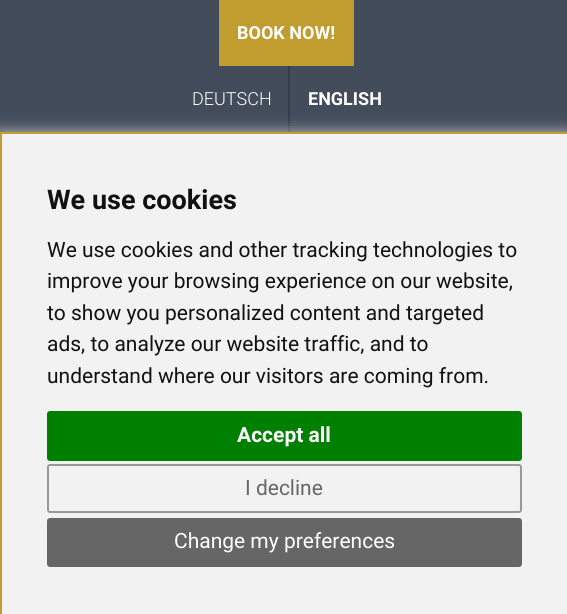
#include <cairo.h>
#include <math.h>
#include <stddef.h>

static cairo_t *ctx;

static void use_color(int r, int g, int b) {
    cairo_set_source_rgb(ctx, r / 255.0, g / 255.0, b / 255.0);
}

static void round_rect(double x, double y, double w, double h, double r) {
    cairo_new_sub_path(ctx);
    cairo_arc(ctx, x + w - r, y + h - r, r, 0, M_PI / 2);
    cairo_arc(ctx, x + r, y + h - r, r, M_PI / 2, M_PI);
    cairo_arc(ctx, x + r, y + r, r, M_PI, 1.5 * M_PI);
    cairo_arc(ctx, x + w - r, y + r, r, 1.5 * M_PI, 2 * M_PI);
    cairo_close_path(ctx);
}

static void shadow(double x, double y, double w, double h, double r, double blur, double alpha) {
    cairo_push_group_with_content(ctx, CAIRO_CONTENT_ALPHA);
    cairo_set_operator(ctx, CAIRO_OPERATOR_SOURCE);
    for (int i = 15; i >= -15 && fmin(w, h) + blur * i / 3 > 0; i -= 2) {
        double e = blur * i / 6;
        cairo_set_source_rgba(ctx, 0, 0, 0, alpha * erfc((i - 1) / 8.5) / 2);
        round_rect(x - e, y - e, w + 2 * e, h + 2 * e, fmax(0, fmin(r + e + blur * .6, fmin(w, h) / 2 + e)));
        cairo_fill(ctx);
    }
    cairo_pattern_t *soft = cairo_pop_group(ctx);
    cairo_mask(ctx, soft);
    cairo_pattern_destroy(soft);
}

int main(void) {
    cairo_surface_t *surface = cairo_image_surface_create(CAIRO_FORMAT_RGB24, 567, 614);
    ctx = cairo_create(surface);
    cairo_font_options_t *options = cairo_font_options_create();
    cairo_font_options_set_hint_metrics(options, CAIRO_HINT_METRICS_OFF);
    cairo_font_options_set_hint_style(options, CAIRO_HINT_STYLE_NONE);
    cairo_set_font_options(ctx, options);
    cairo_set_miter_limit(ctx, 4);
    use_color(67, 76, 91);
    cairo_paint(ctx);
    use_color(193, 157, 48);
    cairo_rectangle(ctx, 219, 0, 135, 66);
    cairo_fill(ctx);
    cairo_select_font_face(ctx, "Roboto", CAIRO_FONT_SLANT_NORMAL, CAIRO_FONT_WEIGHT_BOLD);
    cairo_set_font_size(ctx, 18);
    use_color(255, 255, 255);
    cairo_move_to(ctx, 237, 39);
    cairo_show_text(ctx, "BOOK NOW!");
    cairo_select_font_face(ctx, "Roboto Light", CAIRO_FONT_SLANT_NORMAL, CAIRO_FONT_WEIGHT_NORMAL);
    cairo_move_to(ctx, 192, 105);
    cairo_show_text(ctx, "DEUTSCH");
    use_color(51, 60, 75);
    cairo_rectangle(ctx, 288, 66, 2, 66);
    cairo_fill(ctx);
    cairo_select_font_face(ctx, "Roboto", CAIRO_FONT_SLANT_NORMAL, CAIRO_FONT_WEIGHT_BOLD);
    use_color(255, 255, 255);
    cairo_move_to(ctx, 308, 105);
    cairo_show_text(ctx, "ENGLISH");
    use_color(192, 192, 192);
    shadow(0, 132, 567, 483, 0, 7.5, 1);
    use_color(242, 242, 242);
    cairo_rectangle(ctx, 2, 134, 565, 480);
    cairo_fill(ctx);
    use_color(193, 157, 48);
    cairo_rectangle(ctx, 0, 132, 567, 2);
    cairo_fill(ctx);
    cairo_rectangle(ctx, 0, 132, 2, 482);
    cairo_fill(ctx);
    cairo_set_font_size(ctx, 27);
    use_color(17, 17, 17);
    cairo_move_to(ctx, 47, 209);
    cairo_show_text(ctx, "We use cookies");
    cairo_select_font_face(ctx, "Roboto", CAIRO_FONT_SLANT_NORMAL, CAIRO_FONT_WEIGHT_NORMAL);
    cairo_set_font_size(ctx, 21);
    cairo_move_to(ctx, 47, 257);
    cairo_show_text(ctx, "We use cookies and other tracking technologies to");
    cairo_move_to(ctx, 47, 288);
    cairo_show_text(ctx, "improve your browsing experience on our website,");
    cairo_move_to(ctx, 47, 320);
    cairo_show_text(ctx, "to show you personalized content and targeted");
    cairo_move_to(ctx, 47, 351);
    cairo_show_text(ctx, "ads, to analyze our website traffic, and to");
    cairo_move_to(ctx, 47, 383);
    cairo_show_text(ctx, "understand where our visitors are coming from.");
    use_color(0, 128, 0);
    round_rect(48, 412, 473, 48, 2);
    cairo_fill_preserve(ctx);
    cairo_stroke(ctx);
    cairo_select_font_face(ctx, "Roboto", CAIRO_FONT_SLANT_NORMAL, CAIRO_FONT_WEIGHT_BOLD);
    use_color(255, 255, 255);
    cairo_move_to(ctx, 237, 442);
    cairo_show_text(ctx, "Accept all");
    round_rect(48, 465, 473, 47, 2);
    use_color(153, 153, 153);
    cairo_stroke(ctx);
    cairo_select_font_face(ctx, "Roboto", CAIRO_FONT_SLANT_NORMAL, CAIRO_FONT_WEIGHT_NORMAL);
    use_color(102, 102, 102);
    cairo_move_to(ctx, 245, 495);
    cairo_show_text(ctx, "I decline");
    round_rect(48, 519, 473, 47, 2);
    cairo_fill_preserve(ctx);
    cairo_stroke(ctx);
    use_color(255, 255, 255);
    cairo_move_to(ctx, 174, 548);
    cairo_show_text(ctx, "Change my preferences");
    cairo_surface_write_to_png(surface, "result.png");
    cairo_font_options_destroy(options);
    cairo_destroy(ctx);
    cairo_surface_destroy(surface);
    return 0;
}
